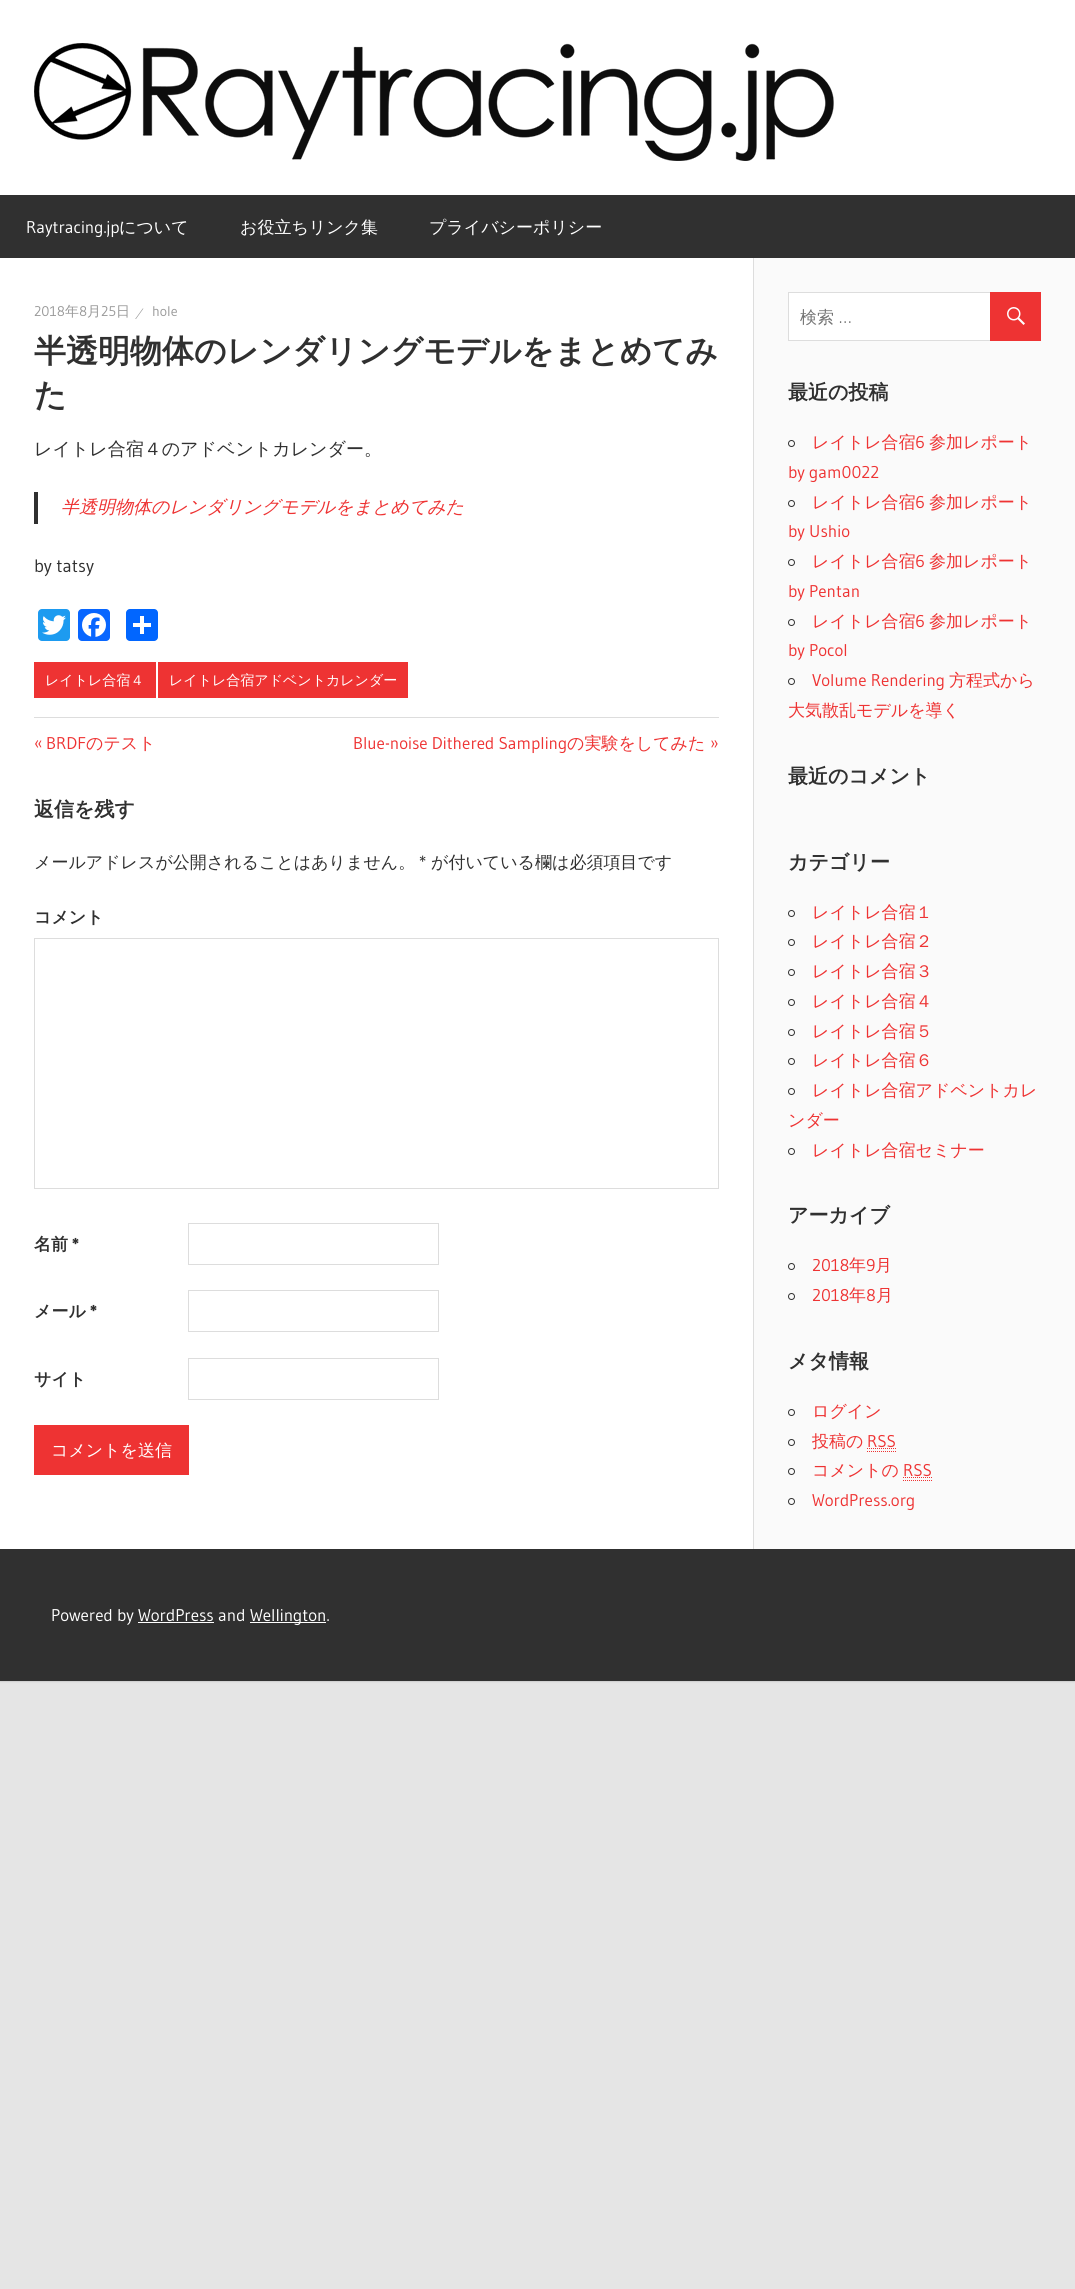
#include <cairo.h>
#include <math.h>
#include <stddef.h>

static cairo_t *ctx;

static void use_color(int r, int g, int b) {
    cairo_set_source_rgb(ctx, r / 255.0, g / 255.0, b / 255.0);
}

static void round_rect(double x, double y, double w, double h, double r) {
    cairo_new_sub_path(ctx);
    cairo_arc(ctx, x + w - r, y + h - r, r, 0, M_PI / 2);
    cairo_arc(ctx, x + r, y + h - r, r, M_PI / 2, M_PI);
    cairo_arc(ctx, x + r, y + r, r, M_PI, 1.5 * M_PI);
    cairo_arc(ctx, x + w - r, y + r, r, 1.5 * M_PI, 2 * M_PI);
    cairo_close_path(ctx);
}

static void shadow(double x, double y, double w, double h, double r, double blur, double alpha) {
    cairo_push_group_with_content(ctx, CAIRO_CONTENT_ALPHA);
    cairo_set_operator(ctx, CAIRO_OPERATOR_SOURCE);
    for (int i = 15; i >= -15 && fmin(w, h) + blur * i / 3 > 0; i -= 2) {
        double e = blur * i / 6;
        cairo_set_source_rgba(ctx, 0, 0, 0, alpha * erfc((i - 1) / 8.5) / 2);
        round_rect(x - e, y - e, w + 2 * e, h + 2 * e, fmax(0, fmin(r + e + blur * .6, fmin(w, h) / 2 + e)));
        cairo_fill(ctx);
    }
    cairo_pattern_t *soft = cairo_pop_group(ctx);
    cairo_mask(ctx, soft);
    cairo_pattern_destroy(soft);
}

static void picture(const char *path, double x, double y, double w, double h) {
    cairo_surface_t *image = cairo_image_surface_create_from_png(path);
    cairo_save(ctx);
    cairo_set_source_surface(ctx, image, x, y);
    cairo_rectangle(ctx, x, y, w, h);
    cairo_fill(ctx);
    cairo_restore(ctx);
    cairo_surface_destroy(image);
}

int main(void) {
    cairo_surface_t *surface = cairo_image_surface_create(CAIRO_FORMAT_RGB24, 1075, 2289);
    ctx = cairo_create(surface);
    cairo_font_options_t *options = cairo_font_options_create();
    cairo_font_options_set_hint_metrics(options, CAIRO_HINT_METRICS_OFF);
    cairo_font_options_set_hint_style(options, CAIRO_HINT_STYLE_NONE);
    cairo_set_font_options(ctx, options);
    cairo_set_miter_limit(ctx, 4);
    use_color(229, 229, 229);
    cairo_paint(ctx);
    use_color(170, 170, 170);
    shadow(0, 0, 1075, 1681, 0, 1, 1);
    use_color(255, 255, 255);
    cairo_rectangle(ctx, 0, 0, 1075, 1549);
    cairo_fill(ctx);
    picture("img1.png", 34, 43, 800, 118);
    use_color(48, 48, 48);
    cairo_rectangle(ctx, 0, 195, 1075, 63);
    cairo_fill(ctx);
    cairo_select_font_face(ctx, "Gudea", CAIRO_FONT_SLANT_NORMAL, CAIRO_FONT_WEIGHT_NORMAL);
    cairo_set_font_size(ctx, 17);
    use_color(255, 255, 255);
    cairo_move_to(ctx, 26, 233);
    cairo_show_text(ctx, "Raytracing.jp");
    cairo_select_font_face(ctx, "WenQuanYi Zen Hei Medium", CAIRO_FONT_SLANT_NORMAL, CAIRO_FONT_WEIGHT_NORMAL);
    cairo_move_to(ctx, 119, 233);
    cairo_show_text(ctx, "について");
    cairo_move_to(ctx, 240, 233);
    cairo_show_text(ctx, "お役立ちリンク集");
    cairo_move_to(ctx, 429, 233);
    cairo_show_text(ctx, "プライバシーポリシー");
    cairo_select_font_face(ctx, "Gudea", CAIRO_FONT_SLANT_NORMAL, CAIRO_FONT_WEIGHT_NORMAL);
    cairo_set_font_size(ctx, 14);
    use_color(153, 153, 153);
    cairo_move_to(ctx, 34, 316);
    cairo_show_text(ctx, "2018");
    cairo_select_font_face(ctx, "WenQuanYi Zen Hei Medium", CAIRO_FONT_SLANT_NORMAL, CAIRO_FONT_WEIGHT_NORMAL);
    cairo_move_to(ctx, 65, 316);
    cairo_show_text(ctx, "年");
    cairo_select_font_face(ctx, "Gudea", CAIRO_FONT_SLANT_NORMAL, CAIRO_FONT_WEIGHT_NORMAL);
    cairo_move_to(ctx, 79, 316);
    cairo_show_text(ctx, "8");
    cairo_select_font_face(ctx, "WenQuanYi Zen Hei Medium", CAIRO_FONT_SLANT_NORMAL, CAIRO_FONT_WEIGHT_NORMAL);
    cairo_move_to(ctx, 87, 316);
    cairo_show_text(ctx, "月");
    cairo_select_font_face(ctx, "Gudea", CAIRO_FONT_SLANT_NORMAL, CAIRO_FONT_WEIGHT_NORMAL);
    cairo_move_to(ctx, 101, 316);
    cairo_show_text(ctx, "25");
    cairo_select_font_face(ctx, "WenQuanYi Zen Hei Medium", CAIRO_FONT_SLANT_NORMAL, CAIRO_FONT_WEIGHT_NORMAL);
    cairo_move_to(ctx, 116, 316);
    cairo_show_text(ctx, "日");
    cairo_select_font_face(ctx, "Liberation Serif", CAIRO_FONT_SLANT_NORMAL, CAIRO_FONT_WEIGHT_NORMAL);
    cairo_set_font_size(ctx, 16);
    cairo_move_to(ctx, 138, 319);
    cairo_show_text(ctx, "⁄");
    cairo_select_font_face(ctx, "Gudea", CAIRO_FONT_SLANT_NORMAL, CAIRO_FONT_WEIGHT_NORMAL);
    cairo_set_font_size(ctx, 14);
    cairo_move_to(ctx, 152, 316);
    cairo_show_text(ctx, "hole");
    cairo_select_font_face(ctx, "WenQuanYi Zen Hei", CAIRO_FONT_SLANT_NORMAL, CAIRO_FONT_WEIGHT_BOLD);
    cairo_set_font_size(ctx, 32);
    use_color(48, 48, 48);
    cairo_move_to(ctx, 34, 362);
    cairo_show_text(ctx, "半透明物体のレンダリングモデルをまとめてみ");
    cairo_move_to(ctx, 34, 406);
    cairo_show_text(ctx, "た");
    cairo_select_font_face(ctx, "WenQuanYi Zen Hei Medium", CAIRO_FONT_SLANT_NORMAL, CAIRO_FONT_WEIGHT_NORMAL);
    cairo_set_font_size(ctx, 18);
    cairo_move_to(ctx, 34, 455);
    cairo_show_text(ctx, "レイトレ合宿４のアドベントカレンダー。");
    cairo_rectangle(ctx, 34, 492, 4, 32);
    cairo_fill(ctx);
    cairo_select_font_face(ctx, "WenQuanYi Zen Hei Medium", CAIRO_FONT_SLANT_ITALIC, CAIRO_FONT_WEIGHT_NORMAL);
    use_color(238, 51, 51);
    cairo_move_to(ctx, 61, 513);
    cairo_show_text(ctx, "半透明物体のレンダリングモデルをまとめてみた");
    cairo_select_font_face(ctx, "Gudea", CAIRO_FONT_SLANT_NORMAL, CAIRO_FONT_WEIGHT_NORMAL);
    use_color(48, 48, 48);
    cairo_move_to(ctx, 34, 572);
    cairo_show_text(ctx, "by tatsy");
    use_color(29, 155, 240);
    round_rect(38, 609, 32, 32, 4);
    cairo_fill(ctx);
    picture("img2.png", 42, 615, 24, 20);
    use_color(8, 102, 255);
    round_rect(78, 609, 32, 32, 4);
    cairo_fill(ctx);
    picture("img3.png", 82, 613, 24, 24);
    use_color(1, 102, 255);
    round_rect(126, 609, 32, 32, 4);
    cairo_fill(ctx);
    use_color(255, 255, 255);
    cairo_rectangle(ctx, 140, 616, 4, 18);
    cairo_fill(ctx);
    cairo_rectangle(ctx, 133, 623, 18, 4);
    cairo_fill(ctx);
    use_color(238, 51, 51);
    cairo_rectangle(ctx, 34, 662, 122, 36);
    cairo_fill(ctx);
    cairo_select_font_face(ctx, "WenQuanYi Zen Hei Medium", CAIRO_FONT_SLANT_NORMAL, CAIRO_FONT_WEIGHT_NORMAL);
    cairo_set_font_size(ctx, 14);
    use_color(255, 255, 255);
    cairo_move_to(ctx, 45, 685);
    cairo_show_text(ctx, "レイトレ合宿４");
    use_color(238, 51, 51);
    cairo_rectangle(ctx, 158, 662, 250, 36);
    cairo_fill(ctx);
    use_color(255, 255, 255);
    cairo_move_to(ctx, 169, 685);
    cairo_show_text(ctx, "レイトレ合宿アドベントカレンダー");
    use_color(221, 221, 221);
    cairo_rectangle(ctx, 34, 717, 685, 1);
    cairo_fill(ctx);
    cairo_select_font_face(ctx, "Gudea", CAIRO_FONT_SLANT_NORMAL, CAIRO_FONT_WEIGHT_NORMAL);
    cairo_set_font_size(ctx, 17);
    use_color(238, 51, 51);
    cairo_move_to(ctx, 34, 749);
    cairo_show_text(ctx, "«");
    cairo_move_to(ctx, 46, 749);
    cairo_show_text(ctx, "BRDF");
    cairo_select_font_face(ctx, "WenQuanYi Zen Hei Medium", CAIRO_FONT_SLANT_NORMAL, CAIRO_FONT_WEIGHT_NORMAL);
    cairo_move_to(ctx, 86, 749);
    cairo_show_text(ctx, "のテスト");
    cairo_select_font_face(ctx, "Gudea", CAIRO_FONT_SLANT_NORMAL, CAIRO_FONT_WEIGHT_NORMAL);
    cairo_move_to(ctx, 353, 749);
    cairo_show_text(ctx, "Blue-noise Dithered Sampling");
    cairo_select_font_face(ctx, "WenQuanYi Zen Hei Medium", CAIRO_FONT_SLANT_NORMAL, CAIRO_FONT_WEIGHT_NORMAL);
    cairo_move_to(ctx, 567, 749);
    cairo_show_text(ctx, "の実験をしてみた");
    cairo_select_font_face(ctx, "Gudea", CAIRO_FONT_SLANT_NORMAL, CAIRO_FONT_WEIGHT_NORMAL);
    cairo_move_to(ctx, 710, 749);
    cairo_show_text(ctx, "»");
    cairo_select_font_face(ctx, "WenQuanYi Zen Hei", CAIRO_FONT_SLANT_NORMAL, CAIRO_FONT_WEIGHT_BOLD);
    cairo_set_font_size(ctx, 20);
    use_color(48, 48, 48);
    cairo_move_to(ctx, 34, 816);
    cairo_show_text(ctx, "返信を残す");
    cairo_select_font_face(ctx, "WenQuanYi Zen Hei Medium", CAIRO_FONT_SLANT_NORMAL, CAIRO_FONT_WEIGHT_NORMAL);
    cairo_set_font_size(ctx, 17);
    cairo_move_to(ctx, 34, 868);
    cairo_show_text(ctx, "メールアドレスが公開されることはありません。");
    cairo_select_font_face(ctx, "Gudea", CAIRO_FONT_SLANT_NORMAL, CAIRO_FONT_WEIGHT_NORMAL);
    cairo_move_to(ctx, 419, 868);
    cairo_show_text(ctx, "*");
    cairo_select_font_face(ctx, "WenQuanYi Zen Hei Medium", CAIRO_FONT_SLANT_NORMAL, CAIRO_FONT_WEIGHT_NORMAL);
    cairo_move_to(ctx, 431, 868);
    cairo_show_text(ctx, "が付いている欄は必須項目です");
    cairo_select_font_face(ctx, "WenQuanYi Zen Hei", CAIRO_FONT_SLANT_NORMAL, CAIRO_FONT_WEIGHT_BOLD);
    cairo_move_to(ctx, 34, 923);
    cairo_show_text(ctx, "コメント");
    cairo_rectangle(ctx, 34.5, 938.5, 684, 250);
    use_color(221, 221, 221);
    cairo_set_line_width(ctx, 1);
    cairo_stroke(ctx);
    use_color(48, 48, 48);
    cairo_move_to(ctx, 34, 1250);
    cairo_show_text(ctx, "名前");
    cairo_select_font_face(ctx, "Gudea", CAIRO_FONT_SLANT_NORMAL, CAIRO_FONT_WEIGHT_BOLD);
    cairo_move_to(ctx, 72, 1250);
    cairo_show_text(ctx, "*");
    cairo_rectangle(ctx, 188.5, 1223.5, 250, 41);
    use_color(221, 221, 221);
    cairo_stroke(ctx);
    cairo_select_font_face(ctx, "WenQuanYi Zen Hei", CAIRO_FONT_SLANT_NORMAL, CAIRO_FONT_WEIGHT_BOLD);
    use_color(48, 48, 48);
    cairo_move_to(ctx, 34, 1317);
    cairo_show_text(ctx, "メール");
    cairo_select_font_face(ctx, "Gudea", CAIRO_FONT_SLANT_NORMAL, CAIRO_FONT_WEIGHT_BOLD);
    cairo_move_to(ctx, 90, 1317);
    cairo_show_text(ctx, "*");
    cairo_rectangle(ctx, 188.5, 1290.5, 250, 41);
    use_color(221, 221, 221);
    cairo_stroke(ctx);
    cairo_select_font_face(ctx, "WenQuanYi Zen Hei", CAIRO_FONT_SLANT_NORMAL, CAIRO_FONT_WEIGHT_BOLD);
    use_color(48, 48, 48);
    cairo_move_to(ctx, 34, 1385);
    cairo_show_text(ctx, "サイト");
    cairo_rectangle(ctx, 188.5, 1358.5, 250, 41);
    use_color(221, 221, 221);
    cairo_stroke(ctx);
    use_color(238, 51, 51);
    cairo_rectangle(ctx, 34, 1425, 155, 50);
    cairo_fill(ctx);
    cairo_select_font_face(ctx, "WenQuanYi Zen Hei Medium", CAIRO_FONT_SLANT_NORMAL, CAIRO_FONT_WEIGHT_NORMAL);
    use_color(255, 255, 255);
    cairo_move_to(ctx, 51, 1456);
    cairo_show_text(ctx, "コメントを送信");
    use_color(250, 250, 250);
    cairo_rectangle(ctx, 754, 258, 321, 1291);
    cairo_fill(ctx);
    use_color(221, 221, 221);
    cairo_rectangle(ctx, 753, 258, 1, 1291);
    cairo_fill(ctx);
    use_color(255, 255, 255);
    cairo_rectangle(ctx, 789, 293, 201, 47);
    cairo_fill(ctx);
    cairo_save(ctx);
    cairo_rectangle(ctx, 788, 292, 253, 49);
    cairo_clip(ctx);
    cairo_rectangle(ctx, 788.5, 292.5, 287, 48);
    use_color(221, 221, 221);
    cairo_stroke(ctx);
    cairo_restore(ctx);
    use_color(117, 117, 117);
    cairo_move_to(ctx, 800, 323);
    cairo_show_text(ctx, "検索");
    cairo_select_font_face(ctx, "Gudea", CAIRO_FONT_SLANT_NORMAL, CAIRO_FONT_WEIGHT_NORMAL);
    cairo_move_to(ctx, 839, 323);
    cairo_show_text(ctx, "…");
    use_color(238, 51, 51);
    cairo_rectangle(ctx, 990, 292, 51, 49);
    cairo_fill(ctx);
    picture("img4.png", 1007, 307, 18, 18);
    cairo_select_font_face(ctx, "WenQuanYi Zen Hei", CAIRO_FONT_SLANT_NORMAL, CAIRO_FONT_WEIGHT_BOLD);
    cairo_set_font_size(ctx, 20);
    use_color(48, 48, 48);
    cairo_move_to(ctx, 788, 399);
    cairo_show_text(ctx, "最近の投稿");
    cairo_new_path(ctx);
    cairo_arc(ctx, 791.5, 443.5, 3, 0, 2 * M_PI);
    cairo_stroke(ctx);
    cairo_select_font_face(ctx, "WenQuanYi Zen Hei Medium", CAIRO_FONT_SLANT_NORMAL, CAIRO_FONT_WEIGHT_NORMAL);
    cairo_set_font_size(ctx, 17);
    use_color(238, 51, 51);
    cairo_move_to(ctx, 812, 448);
    cairo_show_text(ctx, "レイトレ合宿");
    cairo_select_font_face(ctx, "Gudea", CAIRO_FONT_SLANT_NORMAL, CAIRO_FONT_WEIGHT_NORMAL);
    cairo_move_to(ctx, 915, 448);
    cairo_show_text(ctx, "6");
    cairo_select_font_face(ctx, "WenQuanYi Zen Hei Medium", CAIRO_FONT_SLANT_NORMAL, CAIRO_FONT_WEIGHT_NORMAL);
    cairo_move_to(ctx, 929, 448);
    cairo_show_text(ctx, "参加レポート");
    cairo_select_font_face(ctx, "Gudea", CAIRO_FONT_SLANT_NORMAL, CAIRO_FONT_WEIGHT_NORMAL);
    cairo_move_to(ctx, 788, 478);
    cairo_show_text(ctx, "by gam0022");
    cairo_new_path(ctx);
    cairo_arc(ctx, 791.5, 503.5, 3, 0, 2 * M_PI);
    use_color(48, 48, 48);
    cairo_stroke(ctx);
    cairo_select_font_face(ctx, "WenQuanYi Zen Hei Medium", CAIRO_FONT_SLANT_NORMAL, CAIRO_FONT_WEIGHT_NORMAL);
    use_color(238, 51, 51);
    cairo_move_to(ctx, 812, 508);
    cairo_show_text(ctx, "レイトレ合宿");
    cairo_select_font_face(ctx, "Gudea", CAIRO_FONT_SLANT_NORMAL, CAIRO_FONT_WEIGHT_NORMAL);
    cairo_move_to(ctx, 915, 508);
    cairo_show_text(ctx, "6");
    cairo_select_font_face(ctx, "WenQuanYi Zen Hei Medium", CAIRO_FONT_SLANT_NORMAL, CAIRO_FONT_WEIGHT_NORMAL);
    cairo_move_to(ctx, 929, 508);
    cairo_show_text(ctx, "参加レポート");
    cairo_select_font_face(ctx, "Gudea", CAIRO_FONT_SLANT_NORMAL, CAIRO_FONT_WEIGHT_NORMAL);
    cairo_move_to(ctx, 788, 537);
    cairo_show_text(ctx, "by Ushio");
    cairo_new_path(ctx);
    cairo_arc(ctx, 791.5, 562.5, 3, 0, 2 * M_PI);
    use_color(48, 48, 48);
    cairo_stroke(ctx);
    cairo_select_font_face(ctx, "WenQuanYi Zen Hei Medium", CAIRO_FONT_SLANT_NORMAL, CAIRO_FONT_WEIGHT_NORMAL);
    use_color(238, 51, 51);
    cairo_move_to(ctx, 812, 567);
    cairo_show_text(ctx, "レイトレ合宿");
    cairo_select_font_face(ctx, "Gudea", CAIRO_FONT_SLANT_NORMAL, CAIRO_FONT_WEIGHT_NORMAL);
    cairo_move_to(ctx, 915, 567);
    cairo_show_text(ctx, "6");
    cairo_select_font_face(ctx, "WenQuanYi Zen Hei Medium", CAIRO_FONT_SLANT_NORMAL, CAIRO_FONT_WEIGHT_NORMAL);
    cairo_move_to(ctx, 929, 567);
    cairo_show_text(ctx, "参加レポート");
    cairo_select_font_face(ctx, "Gudea", CAIRO_FONT_SLANT_NORMAL, CAIRO_FONT_WEIGHT_NORMAL);
    cairo_move_to(ctx, 788, 597);
    cairo_show_text(ctx, "by Pentan");
    cairo_new_path(ctx);
    cairo_arc(ctx, 791.5, 622.5, 3, 0, 2 * M_PI);
    use_color(48, 48, 48);
    cairo_stroke(ctx);
    cairo_select_font_face(ctx, "WenQuanYi Zen Hei Medium", CAIRO_FONT_SLANT_NORMAL, CAIRO_FONT_WEIGHT_NORMAL);
    use_color(238, 51, 51);
    cairo_move_to(ctx, 812, 627);
    cairo_show_text(ctx, "レイトレ合宿");
    cairo_select_font_face(ctx, "Gudea", CAIRO_FONT_SLANT_NORMAL, CAIRO_FONT_WEIGHT_NORMAL);
    cairo_move_to(ctx, 915, 627);
    cairo_show_text(ctx, "6");
    cairo_select_font_face(ctx, "WenQuanYi Zen Hei Medium", CAIRO_FONT_SLANT_NORMAL, CAIRO_FONT_WEIGHT_NORMAL);
    cairo_move_to(ctx, 929, 627);
    cairo_show_text(ctx, "参加レポート");
    cairo_select_font_face(ctx, "Gudea", CAIRO_FONT_SLANT_NORMAL, CAIRO_FONT_WEIGHT_NORMAL);
    cairo_move_to(ctx, 788, 656);
    cairo_show_text(ctx, "by Pocol");
    cairo_new_path(ctx);
    cairo_arc(ctx, 791.5, 681.5, 3, 0, 2 * M_PI);
    use_color(48, 48, 48);
    cairo_stroke(ctx);
    use_color(238, 51, 51);
    cairo_move_to(ctx, 812, 686);
    cairo_show_text(ctx, "Volume Rendering");
    cairo_select_font_face(ctx, "WenQuanYi Zen Hei Medium", CAIRO_FONT_SLANT_NORMAL, CAIRO_FONT_WEIGHT_NORMAL);
    cairo_move_to(ctx, 949, 686);
    cairo_show_text(ctx, "方程式から");
    cairo_move_to(ctx, 788, 716);
    cairo_show_text(ctx, "大気散乱モデルを導く");
    cairo_select_font_face(ctx, "WenQuanYi Zen Hei", CAIRO_FONT_SLANT_NORMAL, CAIRO_FONT_WEIGHT_BOLD);
    cairo_set_font_size(ctx, 20);
    use_color(48, 48, 48);
    cairo_move_to(ctx, 788, 783);
    cairo_show_text(ctx, "最近のコメント");
    cairo_move_to(ctx, 788, 869);
    cairo_show_text(ctx, "カテゴリー");
    cairo_new_path(ctx);
    cairo_arc(ctx, 791.5, 913.5, 3, 0, 2 * M_PI);
    cairo_stroke(ctx);
    cairo_select_font_face(ctx, "WenQuanYi Zen Hei Medium", CAIRO_FONT_SLANT_NORMAL, CAIRO_FONT_WEIGHT_NORMAL);
    cairo_set_font_size(ctx, 17);
    use_color(238, 51, 51);
    cairo_move_to(ctx, 812, 918);
    cairo_show_text(ctx, "レイトレ合宿１");
    cairo_new_path(ctx);
    cairo_arc(ctx, 791.5, 942.5, 3, 0, 2 * M_PI);
    use_color(48, 48, 48);
    cairo_stroke(ctx);
    use_color(238, 51, 51);
    cairo_move_to(ctx, 812, 947);
    cairo_show_text(ctx, "レイトレ合宿２");
    cairo_new_path(ctx);
    cairo_arc(ctx, 791.5, 972.5, 3, 0, 2 * M_PI);
    use_color(48, 48, 48);
    cairo_stroke(ctx);
    use_color(238, 51, 51);
    cairo_move_to(ctx, 812, 977);
    cairo_show_text(ctx, "レイトレ合宿３");
    cairo_new_path(ctx);
    cairo_arc(ctx, 791.5, 1002.5, 3, 0, 2 * M_PI);
    use_color(48, 48, 48);
    cairo_stroke(ctx);
    use_color(238, 51, 51);
    cairo_move_to(ctx, 812, 1007);
    cairo_show_text(ctx, "レイトレ合宿４");
    cairo_new_path(ctx);
    cairo_arc(ctx, 791.5, 1032.5, 3, 0, 2 * M_PI);
    use_color(48, 48, 48);
    cairo_stroke(ctx);
    use_color(238, 51, 51);
    cairo_move_to(ctx, 812, 1037);
    cairo_show_text(ctx, "レイトレ合宿５");
    cairo_new_path(ctx);
    cairo_arc(ctx, 791.5, 1061.5, 3, 0, 2 * M_PI);
    use_color(48, 48, 48);
    cairo_stroke(ctx);
    use_color(238, 51, 51);
    cairo_move_to(ctx, 812, 1066);
    cairo_show_text(ctx, "レイトレ合宿６");
    cairo_new_path(ctx);
    cairo_arc(ctx, 791.5, 1091.5, 3, 0, 2 * M_PI);
    use_color(48, 48, 48);
    cairo_stroke(ctx);
    use_color(238, 51, 51);
    cairo_move_to(ctx, 812, 1096);
    cairo_show_text(ctx, "レイトレ合宿アドベントカレ");
    cairo_move_to(ctx, 788, 1126);
    cairo_show_text(ctx, "ンダー");
    cairo_new_path(ctx);
    cairo_arc(ctx, 791.5, 1151.5, 3, 0, 2 * M_PI);
    use_color(48, 48, 48);
    cairo_stroke(ctx);
    use_color(238, 51, 51);
    cairo_move_to(ctx, 812, 1156);
    cairo_show_text(ctx, "レイトレ合宿セミナー");
    cairo_select_font_face(ctx, "WenQuanYi Zen Hei", CAIRO_FONT_SLANT_NORMAL, CAIRO_FONT_WEIGHT_BOLD);
    cairo_set_font_size(ctx, 20);
    use_color(48, 48, 48);
    cairo_move_to(ctx, 788, 1222);
    cairo_show_text(ctx, "アーカイブ");
    cairo_new_path(ctx);
    cairo_arc(ctx, 791.5, 1266.5, 3, 0, 2 * M_PI);
    cairo_stroke(ctx);
    cairo_select_font_face(ctx, "Gudea", CAIRO_FONT_SLANT_NORMAL, CAIRO_FONT_WEIGHT_NORMAL);
    cairo_set_font_size(ctx, 17);
    use_color(238, 51, 51);
    cairo_move_to(ctx, 812, 1271);
    cairo_show_text(ctx, "2018");
    cairo_select_font_face(ctx, "WenQuanYi Zen Hei Medium", CAIRO_FONT_SLANT_NORMAL, CAIRO_FONT_WEIGHT_NORMAL);
    cairo_move_to(ctx, 849, 1271);
    cairo_show_text(ctx, "年");
    cairo_select_font_face(ctx, "Gudea", CAIRO_FONT_SLANT_NORMAL, CAIRO_FONT_WEIGHT_NORMAL);
    cairo_move_to(ctx, 866, 1271);
    cairo_show_text(ctx, "9");
    cairo_select_font_face(ctx, "WenQuanYi Zen Hei Medium", CAIRO_FONT_SLANT_NORMAL, CAIRO_FONT_WEIGHT_NORMAL);
    cairo_move_to(ctx, 875, 1271);
    cairo_show_text(ctx, "月");
    cairo_new_path(ctx);
    cairo_arc(ctx, 791.5, 1296.5, 3, 0, 2 * M_PI);
    use_color(48, 48, 48);
    cairo_stroke(ctx);
    cairo_select_font_face(ctx, "Gudea", CAIRO_FONT_SLANT_NORMAL, CAIRO_FONT_WEIGHT_NORMAL);
    use_color(238, 51, 51);
    cairo_move_to(ctx, 812, 1301);
    cairo_show_text(ctx, "2018");
    cairo_select_font_face(ctx, "WenQuanYi Zen Hei Medium", CAIRO_FONT_SLANT_NORMAL, CAIRO_FONT_WEIGHT_NORMAL);
    cairo_move_to(ctx, 849, 1301);
    cairo_show_text(ctx, "年");
    cairo_select_font_face(ctx, "Gudea", CAIRO_FONT_SLANT_NORMAL, CAIRO_FONT_WEIGHT_NORMAL);
    cairo_move_to(ctx, 866, 1301);
    cairo_show_text(ctx, "8");
    cairo_select_font_face(ctx, "WenQuanYi Zen Hei Medium", CAIRO_FONT_SLANT_NORMAL, CAIRO_FONT_WEIGHT_NORMAL);
    cairo_move_to(ctx, 876, 1301);
    cairo_show_text(ctx, "月");
    cairo_select_font_face(ctx, "WenQuanYi Zen Hei", CAIRO_FONT_SLANT_NORMAL, CAIRO_FONT_WEIGHT_BOLD);
    cairo_set_font_size(ctx, 20);
    use_color(48, 48, 48);
    cairo_move_to(ctx, 788, 1368);
    cairo_show_text(ctx, "メタ情報");
    cairo_new_path(ctx);
    cairo_arc(ctx, 791.5, 1412.5, 3, 0, 2 * M_PI);
    cairo_stroke(ctx);
    cairo_select_font_face(ctx, "WenQuanYi Zen Hei Medium", CAIRO_FONT_SLANT_NORMAL, CAIRO_FONT_WEIGHT_NORMAL);
    cairo_set_font_size(ctx, 17);
    use_color(238, 51, 51);
    cairo_move_to(ctx, 812, 1417);
    cairo_show_text(ctx, "ログイン");
    cairo_new_path(ctx);
    cairo_arc(ctx, 791.5, 1442.5, 3, 0, 2 * M_PI);
    use_color(48, 48, 48);
    cairo_stroke(ctx);
    use_color(238, 51, 51);
    cairo_move_to(ctx, 812, 1447);
    cairo_show_text(ctx, "投稿の");
    cairo_select_font_face(ctx, "Gudea", CAIRO_FONT_SLANT_NORMAL, CAIRO_FONT_WEIGHT_NORMAL);
    cairo_move_to(ctx, 867, 1447);
    cairo_show_text(ctx, "RSS");
    cairo_new_path(ctx);
    cairo_move_to(ctx, 867, 1451.5);
    cairo_line_to(ctx, 896, 1451.5);
    cairo_move_to(ctx, 867, 1448.5);
    cairo_line_to(ctx, 896, 1448.5);
    cairo_set_dash(ctx, (double[]){1, 1}, 2, 0);
    cairo_stroke(ctx);
    cairo_arc(ctx, 791.5, 1471.5, 3, 0, 2 * M_PI);
    use_color(48, 48, 48);
    cairo_set_dash(ctx, NULL, 0, 0);
    cairo_stroke(ctx);
    cairo_select_font_face(ctx, "WenQuanYi Zen Hei Medium", CAIRO_FONT_SLANT_NORMAL, CAIRO_FONT_WEIGHT_NORMAL);
    use_color(238, 51, 51);
    cairo_move_to(ctx, 812, 1476);
    cairo_show_text(ctx, "コメントの");
    cairo_select_font_face(ctx, "Gudea", CAIRO_FONT_SLANT_NORMAL, CAIRO_FONT_WEIGHT_NORMAL);
    cairo_move_to(ctx, 903, 1476);
    cairo_show_text(ctx, "RSS");
    cairo_new_path(ctx);
    cairo_move_to(ctx, 903, 1480.5);
    cairo_line_to(ctx, 932, 1480.5);
    cairo_move_to(ctx, 903, 1477.5);
    cairo_line_to(ctx, 932, 1477.5);
    cairo_set_dash(ctx, (double[]){1, 1}, 2, 0);
    cairo_stroke(ctx);
    cairo_arc(ctx, 791.5, 1501.5, 3, 0, 2 * M_PI);
    use_color(48, 48, 48);
    cairo_set_dash(ctx, NULL, 0, 0);
    cairo_stroke(ctx);
    use_color(238, 51, 51);
    cairo_move_to(ctx, 812, 1506);
    cairo_show_text(ctx, "WordPress.org");
    use_color(48, 48, 48);
    cairo_rectangle(ctx, 0, 1549, 1075, 132);
    cairo_fill(ctx);
    use_color(255, 255, 255);
    cairo_move_to(ctx, 51, 1621);
    cairo_show_text(ctx, "Powered by WordPress and");
    cairo_rectangle(ctx, 138, 1622, 76, 1);
    cairo_fill(ctx);
    cairo_rectangle(ctx, 250, 1622, 76, 1);
    cairo_fill(ctx);
    cairo_move_to(ctx, 250, 1621);
    cairo_show_text(ctx, "Wellington.");
    cairo_surface_write_to_png(surface, "result.png");
    cairo_font_options_destroy(options);
    cairo_destroy(ctx);
    cairo_surface_destroy(surface);
    return 0;
}
